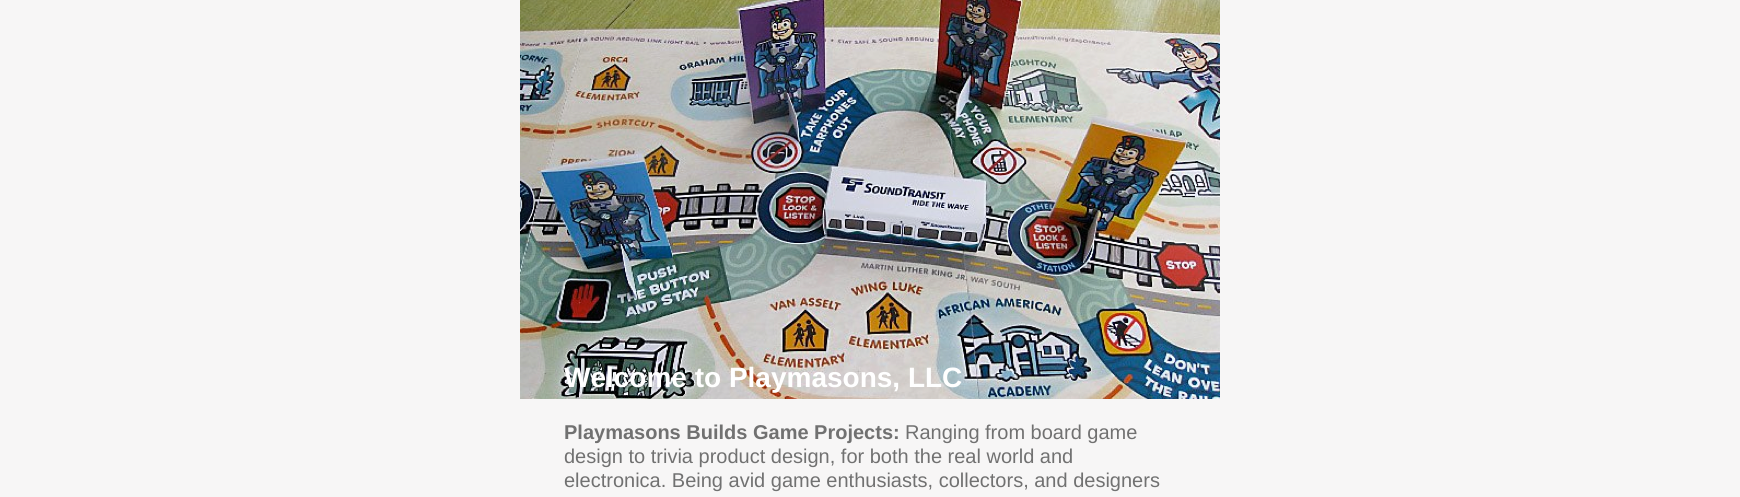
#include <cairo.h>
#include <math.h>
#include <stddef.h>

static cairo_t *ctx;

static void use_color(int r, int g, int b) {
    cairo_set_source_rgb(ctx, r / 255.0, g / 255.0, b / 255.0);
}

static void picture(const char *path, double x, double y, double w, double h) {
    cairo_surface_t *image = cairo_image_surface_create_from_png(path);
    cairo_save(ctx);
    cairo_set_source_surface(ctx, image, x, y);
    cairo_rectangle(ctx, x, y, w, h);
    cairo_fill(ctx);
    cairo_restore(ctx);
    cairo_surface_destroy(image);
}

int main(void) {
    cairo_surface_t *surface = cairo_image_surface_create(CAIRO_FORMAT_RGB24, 1740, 497);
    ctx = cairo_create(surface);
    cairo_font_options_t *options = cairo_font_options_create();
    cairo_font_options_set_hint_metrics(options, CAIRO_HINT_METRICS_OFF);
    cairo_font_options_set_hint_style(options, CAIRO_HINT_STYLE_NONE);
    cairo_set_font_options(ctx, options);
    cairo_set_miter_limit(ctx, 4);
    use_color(247, 246, 246);
    cairo_paint(ctx);
    picture("img1.png", 520, 0, 700, 399);
    cairo_select_font_face(ctx, "Liberation Sans", CAIRO_FONT_SLANT_NORMAL, CAIRO_FONT_WEIGHT_BOLD);
    cairo_set_font_size(ctx, 28);
    use_color(255, 255, 255);
    cairo_move_to(ctx, 564, 387);
    cairo_show_text(ctx, "Welcome to Playmasons, LLC");
    cairo_set_font_size(ctx, 20);
    use_color(113, 113, 113);
    cairo_move_to(ctx, 564, 439);
    cairo_show_text(ctx, "Playmasons Builds Game Projects:");
    cairo_select_font_face(ctx, "Liberation Sans", CAIRO_FONT_SLANT_NORMAL, CAIRO_FONT_WEIGHT_NORMAL);
    cairo_move_to(ctx, 905, 439);
    cairo_show_text(ctx, "Ranging from board game");
    cairo_move_to(ctx, 564, 463);
    cairo_show_text(ctx, "design to trivia product design, for both the real world and");
    cairo_move_to(ctx, 564, 487);
    cairo_show_text(ctx, "electronica. Being avid game enthusiasts, collectors, and designers");
    cairo_surface_write_to_png(surface, "result.png");
    cairo_font_options_destroy(options);
    cairo_destroy(ctx);
    cairo_surface_destroy(surface);
    return 0;
}
